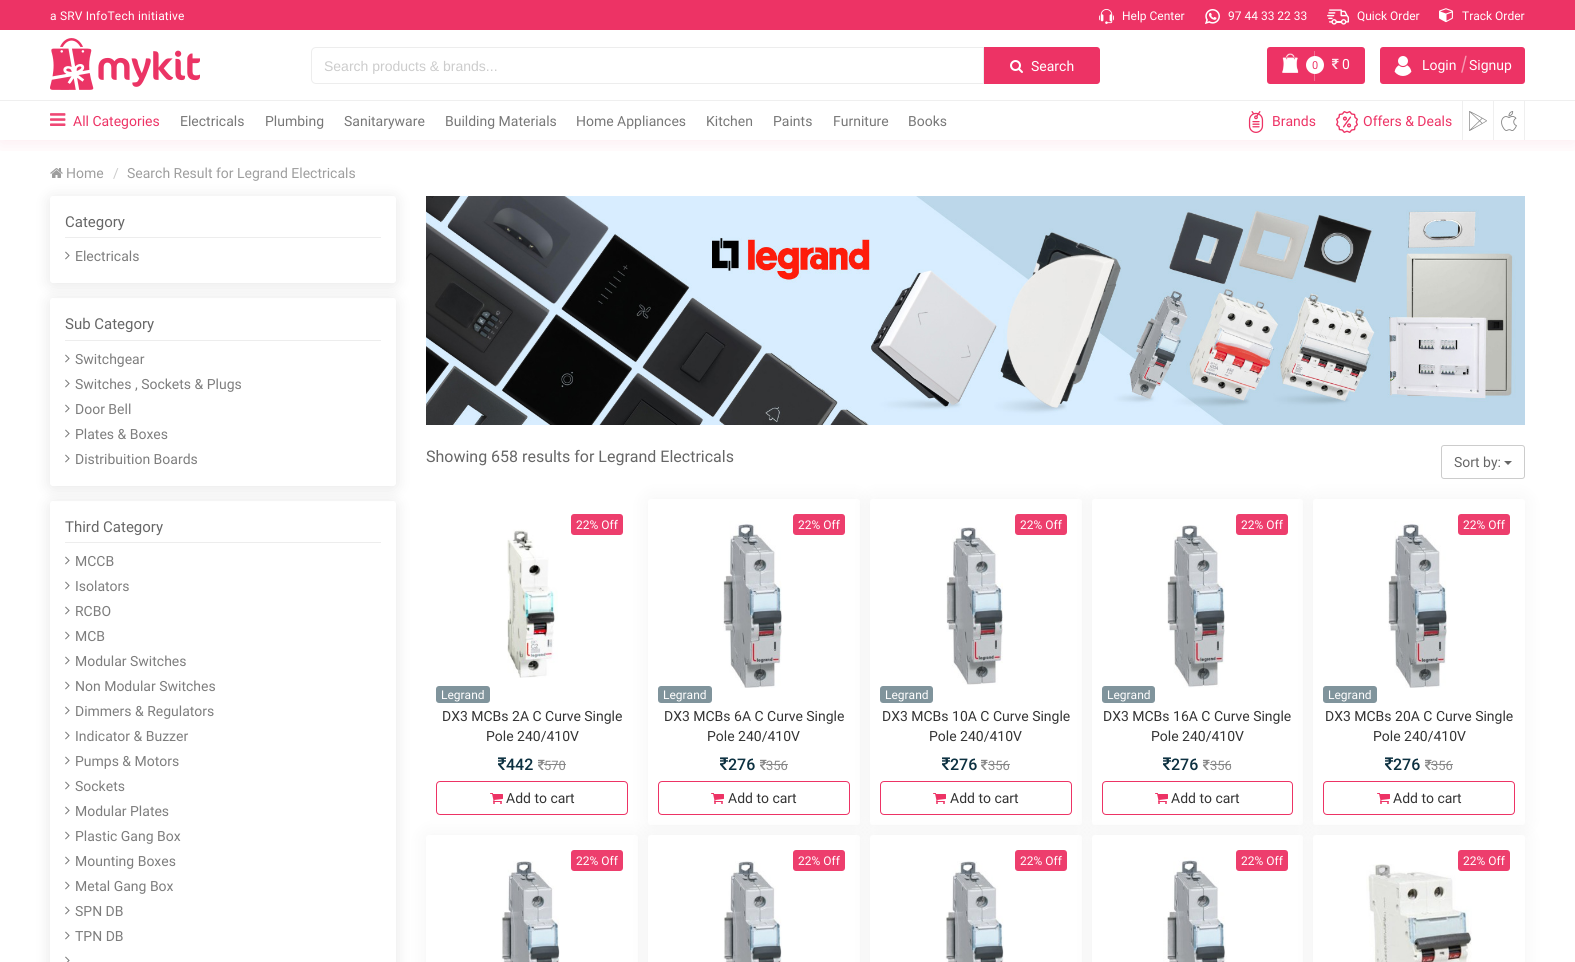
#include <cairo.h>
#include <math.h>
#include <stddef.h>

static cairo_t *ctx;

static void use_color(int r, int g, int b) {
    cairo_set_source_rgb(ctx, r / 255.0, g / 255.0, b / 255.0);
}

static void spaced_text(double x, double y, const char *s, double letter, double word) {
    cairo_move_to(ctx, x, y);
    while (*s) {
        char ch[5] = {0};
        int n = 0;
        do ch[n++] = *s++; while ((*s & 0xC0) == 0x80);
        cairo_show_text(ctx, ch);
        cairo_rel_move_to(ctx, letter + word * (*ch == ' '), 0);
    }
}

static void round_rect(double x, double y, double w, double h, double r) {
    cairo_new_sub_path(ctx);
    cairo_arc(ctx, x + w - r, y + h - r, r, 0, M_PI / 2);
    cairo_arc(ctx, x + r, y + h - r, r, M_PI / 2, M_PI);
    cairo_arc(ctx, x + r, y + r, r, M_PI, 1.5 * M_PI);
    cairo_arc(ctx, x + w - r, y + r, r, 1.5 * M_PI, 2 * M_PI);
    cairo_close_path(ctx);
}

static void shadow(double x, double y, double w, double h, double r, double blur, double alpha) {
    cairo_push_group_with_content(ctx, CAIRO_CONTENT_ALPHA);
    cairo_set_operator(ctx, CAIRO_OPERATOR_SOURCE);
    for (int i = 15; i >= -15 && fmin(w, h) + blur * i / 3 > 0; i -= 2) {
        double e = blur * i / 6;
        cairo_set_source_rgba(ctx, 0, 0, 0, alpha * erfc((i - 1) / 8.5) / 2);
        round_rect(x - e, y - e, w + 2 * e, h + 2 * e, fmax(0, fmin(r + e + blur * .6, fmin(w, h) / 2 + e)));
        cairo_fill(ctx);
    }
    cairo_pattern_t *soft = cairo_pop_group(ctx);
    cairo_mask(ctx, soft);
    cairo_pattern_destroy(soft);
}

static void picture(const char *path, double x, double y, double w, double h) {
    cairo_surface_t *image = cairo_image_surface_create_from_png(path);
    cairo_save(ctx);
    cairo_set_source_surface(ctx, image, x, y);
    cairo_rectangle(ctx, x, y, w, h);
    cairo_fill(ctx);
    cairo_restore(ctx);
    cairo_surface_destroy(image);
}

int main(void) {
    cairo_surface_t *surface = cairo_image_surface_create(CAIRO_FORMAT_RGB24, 1575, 962);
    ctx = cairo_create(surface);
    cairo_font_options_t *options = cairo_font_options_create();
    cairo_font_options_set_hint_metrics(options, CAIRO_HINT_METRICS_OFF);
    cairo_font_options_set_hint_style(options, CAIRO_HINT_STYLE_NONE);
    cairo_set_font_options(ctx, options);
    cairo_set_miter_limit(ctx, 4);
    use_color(255, 255, 255);
    cairo_paint(ctx);
    picture("img15.png", 50, 168, 13, 10);
    cairo_save(ctx);
    cairo_rectangle(ctx, 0, 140, 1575, 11);
    cairo_clip(ctx);
    use_color(237, 51, 101);
    shadow(0, 3, 1575, 140, 0, 10, 0.1);
    cairo_restore(ctx);
    use_color(237, 51, 101);
    cairo_rectangle(ctx, 0, 0, 1575, 30);
    cairo_fill(ctx);
    cairo_select_font_face(ctx, "Roboto", CAIRO_FONT_SLANT_NORMAL, CAIRO_FONT_WEIGHT_NORMAL);
    cairo_set_font_size(ctx, 12);
    use_color(255, 255, 255);
    spaced_text(50, 20, "a SRV InfoTech initiative", 0.2, 0);
    picture("img1.png", 1099, 9, 15, 15);
    cairo_move_to(ctx, 1122, 20);
    cairo_show_text(ctx, "Help Center");
    picture("img2.png", 1205, 9, 15, 15);
    cairo_move_to(ctx, 1228, 20);
    cairo_show_text(ctx, "97 44 33 22 33");
    picture("img3.png", 1327, 9, 22, 16);
    cairo_move_to(ctx, 1357, 20);
    cairo_show_text(ctx, "Quick Order");
    picture("img4.png", 1439, 8, 14, 15);
    cairo_move_to(ctx, 1462, 20);
    cairo_show_text(ctx, "Track Order");
    picture("img5.png", 50, 38, 150, 52);
    cairo_new_path(ctx);
    cairo_move_to(ctx, 316, 47.5);
    cairo_line_to(ctx, 983.5, 47.5);
    cairo_line_to(ctx, 983.5, 83.5);
    cairo_line_to(ctx, 316, 83.5);
    cairo_curve_to(ctx, 313.5, 83.5, 311.5, 81.5, 311.5, 79);
    cairo_line_to(ctx, 311.5, 52);
    cairo_curve_to(ctx, 311.5, 49.5, 313.5, 47.5, 316, 47.5);
    cairo_close_path(ctx);
    use_color(237, 237, 237);
    cairo_set_line_width(ctx, 1);
    cairo_stroke(ctx);
    cairo_select_font_face(ctx, "Liberation Sans", CAIRO_FONT_SLANT_NORMAL, CAIRO_FONT_WEIGHT_NORMAL);
    cairo_set_font_size(ctx, 14);
    use_color(204, 204, 204);
    cairo_move_to(ctx, 324, 71);
    cairo_show_text(ctx, "Search products & brands...");
    use_color(237, 51, 101);
    cairo_new_path(ctx);
    cairo_move_to(ctx, 984, 47);
    cairo_line_to(ctx, 1097, 47);
    cairo_curve_to(ctx, 1098.5, 47, 1100, 48.5, 1100, 50);
    cairo_line_to(ctx, 1100, 81);
    cairo_curve_to(ctx, 1100, 82.5, 1098.5, 84, 1097, 84);
    cairo_line_to(ctx, 984, 84);
    cairo_close_path(ctx);
    cairo_fill(ctx);
    picture("img6.png", 1010, 60, 13, 13);
    cairo_select_font_face(ctx, "Roboto", CAIRO_FONT_SLANT_NORMAL, CAIRO_FONT_WEIGHT_NORMAL);
    use_color(255, 255, 255);
    cairo_move_to(ctx, 1031, 71);
    cairo_show_text(ctx, "Search");
    use_color(237, 51, 101);
    round_rect(1267, 47, 98, 37, 3);
    cairo_fill(ctx);
    picture("img7.png", 1282, 53, 17, 20);
    use_color(242, 112, 147);
    cairo_rectangle(ctx, 1314, 51, 1, 30);
    cairo_fill(ctx);
    picture("img8.png", 1332, 58, 7, 11);
    use_color(255, 255, 255);
    cairo_move_to(ctx, 1342, 69);
    cairo_show_text(ctx, "0");
    cairo_new_path(ctx);
    cairo_arc(ctx, 1315, 65, 9, 0, 2 * M_PI);
    cairo_fill(ctx);
    cairo_set_font_size(ctx, 11);
    use_color(237, 51, 101);
    cairo_move_to(ctx, 1312, 69);
    cairo_show_text(ctx, "0");
    round_rect(1380, 47, 145, 37, 3);
    cairo_fill(ctx);
    picture("img9.png", 1394, 56, 18, 20);
    cairo_set_font_size(ctx, 14);
    use_color(255, 255, 255);
    cairo_move_to(ctx, 1422, 70);
    cairo_show_text(ctx, "Login");
    cairo_select_font_face(ctx, "Roboto", CAIRO_FONT_SLANT_ITALIC, CAIRO_FONT_WEIGHT_NORMAL);
    cairo_set_font_size(ctx, 20);
    use_color(246, 153, 178);
    cairo_move_to(ctx, 1460, 70);
    cairo_show_text(ctx, "|");
    cairo_select_font_face(ctx, "Roboto", CAIRO_FONT_SLANT_NORMAL, CAIRO_FONT_WEIGHT_NORMAL);
    cairo_set_font_size(ctx, 14);
    use_color(255, 255, 255);
    cairo_move_to(ctx, 1469, 70);
    cairo_show_text(ctx, "Signup");
    use_color(239, 239, 239);
    cairo_rectangle(ctx, 0, 100, 1575, 1);
    cairo_fill(ctx);
    picture("img10.png", 50, 113, 16, 13);
    use_color(237, 51, 101);
    cairo_move_to(ctx, 73, 126);
    cairo_show_text(ctx, "All Categories");
    use_color(119, 119, 119);
    cairo_move_to(ctx, 180, 126);
    cairo_show_text(ctx, "Electricals");
    cairo_move_to(ctx, 265, 126);
    cairo_show_text(ctx, "Plumbing");
    cairo_move_to(ctx, 344, 126);
    cairo_show_text(ctx, "Sanitaryware");
    cairo_move_to(ctx, 445, 126);
    cairo_show_text(ctx, "Building Materials");
    cairo_move_to(ctx, 576, 126);
    cairo_show_text(ctx, "Home Appliances");
    cairo_move_to(ctx, 706, 126);
    cairo_show_text(ctx, "Kitchen");
    cairo_move_to(ctx, 773, 126);
    cairo_show_text(ctx, "Paints");
    cairo_move_to(ctx, 833, 126);
    cairo_show_text(ctx, "Furniture");
    cairo_move_to(ctx, 908, 126);
    cairo_show_text(ctx, "Books");
    picture("img11.png", 1248, 111, 16, 22);
    use_color(237, 51, 101);
    cairo_move_to(ctx, 1272, 126);
    cairo_show_text(ctx, "Brands");
    picture("img12.png", 1336, 111, 22, 22);
    cairo_move_to(ctx, 1363, 126);
    cairo_show_text(ctx, "Offers & Deals");
    use_color(239, 239, 239);
    cairo_rectangle(ctx, 1493, 101, 1, 39);
    cairo_fill(ctx);
    cairo_rectangle(ctx, 1462, 101, 1, 39);
    cairo_fill(ctx);
    picture("img13.png", 1469, 111, 18, 20);
    cairo_rectangle(ctx, 1524, 101, 1, 39);
    cairo_fill(ctx);
    picture("img14.png", 1501, 111, 16, 20);
    use_color(158, 158, 158);
    cairo_move_to(ctx, 66, 178);
    cairo_show_text(ctx, "Home");
    use_color(204, 204, 204);
    cairo_move_to(ctx, 113, 178);
    cairo_show_text(ctx, "/");
    use_color(158, 158, 158);
    cairo_move_to(ctx, 127, 178);
    cairo_show_text(ctx, "Search Result for Legrand Electricals");
    cairo_save(ctx);
    cairo_set_fill_rule(ctx, CAIRO_FILL_RULE_EVEN_ODD);
    cairo_new_path(ctx);
    cairo_move_to(ctx, 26, 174);
    cairo_line_to(ctx, 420, 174);
    cairo_line_to(ctx, 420, 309);
    cairo_line_to(ctx, 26, 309);
    cairo_close_path(ctx);
    cairo_move_to(ctx, 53, 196);
    cairo_line_to(ctx, 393, 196);
    cairo_curve_to(ctx, 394.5, 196, 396, 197.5, 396, 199);
    cairo_line_to(ctx, 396, 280);
    cairo_curve_to(ctx, 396, 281.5, 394.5, 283, 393, 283);
    cairo_line_to(ctx, 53, 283);
    cairo_curve_to(ctx, 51.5, 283, 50, 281.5, 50, 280);
    cairo_line_to(ctx, 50, 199);
    cairo_curve_to(ctx, 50, 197.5, 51.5, 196, 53, 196);
    cairo_close_path(ctx);
    cairo_clip(ctx);
    use_color(0, 0, 0);
    shadow(50, 198, 346, 87, 3, 7.5, 0.1);
    cairo_restore(ctx);
    use_color(237, 237, 237);
    cairo_rectangle(ctx, 65, 237, 316, 1);
    cairo_fill(ctx);
    cairo_set_font_size(ctx, 15);
    use_color(102, 102, 102);
    cairo_move_to(ctx, 65, 227);
    cairo_show_text(ctx, "Category");
    picture("img16.png", 65, 251, 5, 9);
    cairo_set_font_size(ctx, 14);
    use_color(125, 125, 125);
    cairo_move_to(ctx, 75, 261);
    cairo_show_text(ctx, "Electricals");
    cairo_save(ctx);
    cairo_set_fill_rule(ctx, CAIRO_FILL_RULE_EVEN_ODD);
    cairo_new_path(ctx);
    cairo_move_to(ctx, 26, 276);
    cairo_line_to(ctx, 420, 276);
    cairo_line_to(ctx, 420, 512);
    cairo_line_to(ctx, 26, 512);
    cairo_close_path(ctx);
    cairo_move_to(ctx, 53, 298);
    cairo_line_to(ctx, 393, 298);
    cairo_curve_to(ctx, 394.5, 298, 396, 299.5, 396, 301);
    cairo_line_to(ctx, 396, 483);
    cairo_curve_to(ctx, 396, 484.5, 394.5, 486, 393, 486);
    cairo_line_to(ctx, 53, 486);
    cairo_curve_to(ctx, 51.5, 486, 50, 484.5, 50, 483);
    cairo_line_to(ctx, 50, 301);
    cairo_curve_to(ctx, 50, 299.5, 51.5, 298, 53, 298);
    cairo_close_path(ctx);
    cairo_clip(ctx);
    use_color(0, 0, 0);
    shadow(50, 300, 346, 188, 3, 7.5, 0.1);
    cairo_restore(ctx);
    use_color(237, 237, 237);
    cairo_rectangle(ctx, 65, 340, 316, 1);
    cairo_fill(ctx);
    cairo_set_font_size(ctx, 15);
    use_color(102, 102, 102);
    cairo_move_to(ctx, 65, 329);
    cairo_show_text(ctx, "Sub Category");
    picture("img16.png", 65, 354, 5, 9);
    cairo_set_font_size(ctx, 14);
    use_color(125, 125, 125);
    cairo_move_to(ctx, 75, 364);
    cairo_show_text(ctx, "Switchgear");
    picture("img16.png", 65, 379, 5, 9);
    cairo_move_to(ctx, 75, 389);
    cairo_show_text(ctx, "Switches , Sockets & Plugs");
    picture("img16.png", 65, 404, 5, 9);
    cairo_move_to(ctx, 75, 414);
    cairo_show_text(ctx, "Door Bell");
    picture("img16.png", 65, 429, 5, 9);
    cairo_move_to(ctx, 75, 439);
    cairo_show_text(ctx, "Plates & Boxes");
    picture("img16.png", 65, 454, 5, 9);
    cairo_move_to(ctx, 75, 464);
    cairo_show_text(ctx, "Distribuition Boards");
    cairo_save(ctx);
    cairo_set_fill_rule(ctx, CAIRO_FILL_RULE_EVEN_ODD);
    cairo_new_path(ctx);
    cairo_move_to(ctx, 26, 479);
    cairo_line_to(ctx, 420, 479);
    cairo_line_to(ctx, 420, 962);
    cairo_line_to(ctx, 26, 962);
    cairo_close_path(ctx);
    cairo_move_to(ctx, 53, 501);
    cairo_line_to(ctx, 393, 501);
    cairo_curve_to(ctx, 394.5, 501, 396, 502.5, 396, 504);
    cairo_line_to(ctx, 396, 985);
    cairo_curve_to(ctx, 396, 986.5, 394.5, 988, 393, 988);
    cairo_line_to(ctx, 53, 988);
    cairo_curve_to(ctx, 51.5, 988, 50, 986.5, 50, 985);
    cairo_line_to(ctx, 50, 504);
    cairo_curve_to(ctx, 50, 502.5, 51.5, 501, 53, 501);
    cairo_close_path(ctx);
    cairo_clip(ctx);
    use_color(0, 0, 0);
    shadow(50, 503, 346, 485, 3, 7.5, 0.1);
    cairo_restore(ctx);
    use_color(237, 237, 237);
    cairo_rectangle(ctx, 65, 542, 316, 1);
    cairo_fill(ctx);
    cairo_set_font_size(ctx, 15);
    use_color(102, 102, 102);
    cairo_move_to(ctx, 65, 532);
    cairo_show_text(ctx, "Third Category");
    picture("img16.png", 65, 556, 5, 9);
    cairo_set_font_size(ctx, 14);
    use_color(125, 125, 125);
    cairo_move_to(ctx, 75, 566);
    cairo_show_text(ctx, "MCCB");
    picture("img16.png", 65, 581, 5, 9);
    cairo_move_to(ctx, 75, 591);
    cairo_show_text(ctx, "Isolators");
    picture("img16.png", 65, 606, 5, 9);
    cairo_move_to(ctx, 75, 616);
    cairo_show_text(ctx, "RCBO");
    picture("img16.png", 65, 631, 5, 9);
    cairo_move_to(ctx, 75, 641);
    cairo_show_text(ctx, "MCB");
    picture("img16.png", 65, 656, 5, 9);
    cairo_move_to(ctx, 75, 666);
    cairo_show_text(ctx, "Modular Switches");
    picture("img16.png", 65, 681, 5, 9);
    cairo_move_to(ctx, 75, 691);
    cairo_show_text(ctx, "Non Modular Switches");
    picture("img16.png", 65, 706, 5, 9);
    cairo_move_to(ctx, 75, 716);
    cairo_show_text(ctx, "Dimmers & Regulators");
    picture("img16.png", 65, 731, 5, 9);
    cairo_move_to(ctx, 75, 741);
    cairo_show_text(ctx, "Indicator & Buzzer");
    picture("img16.png", 65, 756, 5, 9);
    cairo_move_to(ctx, 75, 766);
    cairo_show_text(ctx, "Pumps & Motors");
    picture("img16.png", 65, 781, 5, 9);
    cairo_move_to(ctx, 75, 791);
    cairo_show_text(ctx, "Sockets");
    picture("img16.png", 65, 806, 5, 9);
    cairo_move_to(ctx, 75, 816);
    cairo_show_text(ctx, "Modular Plates");
    picture("img16.png", 65, 831, 5, 9);
    cairo_move_to(ctx, 75, 841);
    cairo_show_text(ctx, "Plastic Gang Box");
    picture("img16.png", 65, 856, 5, 9);
    cairo_move_to(ctx, 75, 866);
    cairo_show_text(ctx, "Mounting Boxes");
    picture("img16.png", 65, 881, 5, 9);
    cairo_move_to(ctx, 75, 891);
    cairo_show_text(ctx, "Metal Gang Box");
    picture("img16.png", 65, 906, 5, 9);
    cairo_move_to(ctx, 75, 916);
    cairo_show_text(ctx, "SPN DB");
    picture("img16.png", 65, 931, 5, 9);
    cairo_move_to(ctx, 75, 941);
    cairo_show_text(ctx, "TPN DB");
    picture("img17.png", 65, 956, 5, 6);
    picture("img18.png", 426, 196, 1099, 229);
    cairo_set_font_size(ctx, 16);
    use_color(102, 102, 102);
    cairo_move_to(ctx, 426, 462);
    cairo_show_text(ctx, "Showing 658 results for Legrand Electricals");
    round_rect(1441.5, 445.5, 83, 33, 2.5);
    use_color(204, 204, 204);
    cairo_stroke(ctx);
    cairo_set_font_size(ctx, 14);
    use_color(102, 102, 102);
    cairo_move_to(ctx, 1454, 467);
    cairo_show_text(ctx, "Sort by:");
    cairo_new_path(ctx);
    cairo_move_to(ctx, 1504, 461);
    cairo_line_to(ctx, 1512, 461);
    cairo_line_to(ctx, 1508, 465);
    cairo_close_path(ctx);
    cairo_fill(ctx);
    use_color(237, 62, 109);
    round_rect(571, 514, 52, 21, 3);
    cairo_fill(ctx);
    cairo_set_font_size(ctx, 12);
    use_color(255, 255, 255);
    cairo_move_to(ctx, 576, 529);
    cairo_show_text(ctx, "22% Off");
    picture("img19.png", 507, 529, 51, 149);
    use_color(128, 148, 156);
    round_rect(436, 686, 54, 17, 3);
    cairo_fill(ctx);
    use_color(255, 255, 255);
    cairo_move_to(ctx, 441, 699);
    cairo_show_text(ctx, "Legrand");
    cairo_set_font_size(ctx, 14);
    use_color(51, 51, 51);
    cairo_move_to(ctx, 442, 721);
    cairo_show_text(ctx, "DX3 MCBs 2A C Curve Single");
    cairo_move_to(ctx, 486, 741);
    cairo_show_text(ctx, "Pole 240/410V");
    picture("img20.png", 498, 757, 8, 13);
    cairo_select_font_face(ctx, "Roboto Medium", CAIRO_FONT_SLANT_NORMAL, CAIRO_FONT_WEIGHT_NORMAL);
    cairo_set_font_size(ctx, 16);
    use_color(13, 49, 65);
    cairo_move_to(ctx, 506, 770);
    cairo_show_text(ctx, "442");
    picture("img21.png", 538, 759, 7, 11);
    cairo_select_font_face(ctx, "Roboto", CAIRO_FONT_SLANT_NORMAL, CAIRO_FONT_WEIGHT_NORMAL);
    cairo_set_font_size(ctx, 13);
    use_color(136, 136, 136);
    cairo_move_to(ctx, 544, 770);
    cairo_show_text(ctx, "570");
    cairo_rectangle(ctx, 544, 764, 22, 1);
    cairo_fill(ctx);
    round_rect(436.5, 781.5, 191, 33, 3.5);
    use_color(237, 51, 101);
    cairo_stroke(ctx);
    picture("img22.png", 490, 793, 13, 11);
    cairo_set_font_size(ctx, 14);
    use_color(51, 51, 51);
    cairo_move_to(ctx, 506, 803);
    cairo_show_text(ctx, "Add to cart");
    use_color(0, 0, 0);
    shadow(648, 499, 212, 326, 3, 10, 0.05);
    use_color(255, 255, 255);
    round_rect(648, 499, 212, 326, 3);
    cairo_fill(ctx);
    picture("img23.png", 723, 521, 59, 167);
    use_color(237, 62, 109);
    round_rect(793, 514, 52, 21, 3);
    cairo_fill(ctx);
    cairo_set_font_size(ctx, 12);
    use_color(255, 255, 255);
    cairo_move_to(ctx, 798, 529);
    cairo_show_text(ctx, "22% Off");
    use_color(128, 148, 156);
    round_rect(658, 686, 54, 17, 3);
    cairo_fill(ctx);
    use_color(255, 255, 255);
    cairo_move_to(ctx, 663, 699);
    cairo_show_text(ctx, "Legrand");
    cairo_set_font_size(ctx, 14);
    use_color(51, 51, 51);
    cairo_move_to(ctx, 664, 721);
    cairo_show_text(ctx, "DX3 MCBs 6A C Curve Single");
    cairo_move_to(ctx, 707, 741);
    cairo_show_text(ctx, "Pole 240/410V");
    picture("img20.png", 720, 757, 8, 13);
    cairo_select_font_face(ctx, "Roboto Medium", CAIRO_FONT_SLANT_NORMAL, CAIRO_FONT_WEIGHT_NORMAL);
    cairo_set_font_size(ctx, 16);
    use_color(13, 49, 65);
    cairo_move_to(ctx, 728, 770);
    cairo_show_text(ctx, "276");
    picture("img21.png", 760, 759, 7, 11);
    cairo_select_font_face(ctx, "Roboto", CAIRO_FONT_SLANT_NORMAL, CAIRO_FONT_WEIGHT_NORMAL);
    cairo_set_font_size(ctx, 13);
    use_color(136, 136, 136);
    cairo_move_to(ctx, 766, 770);
    cairo_show_text(ctx, "356");
    cairo_rectangle(ctx, 766, 764, 22, 1);
    cairo_fill(ctx);
    round_rect(658.5, 781.5, 191, 33, 3.5);
    use_color(237, 51, 101);
    cairo_stroke(ctx);
    picture("img22.png", 711, 793, 13, 11);
    cairo_set_font_size(ctx, 14);
    use_color(51, 51, 51);
    cairo_move_to(ctx, 728, 803);
    cairo_show_text(ctx, "Add to cart");
    use_color(0, 0, 0);
    shadow(870, 499, 212, 326, 3, 10, 0.05);
    use_color(255, 255, 255);
    round_rect(870, 499, 212, 326, 3);
    cairo_fill(ctx);
    use_color(237, 62, 109);
    round_rect(1015, 514, 52, 21, 3);
    cairo_fill(ctx);
    cairo_set_font_size(ctx, 12);
    use_color(255, 255, 255);
    cairo_move_to(ctx, 1020, 529);
    cairo_show_text(ctx, "22% Off");
    picture("img24.png", 946, 527, 57, 158);
    use_color(128, 148, 156);
    round_rect(880, 686, 53, 17, 3);
    cairo_fill(ctx);
    use_color(255, 255, 255);
    cairo_move_to(ctx, 885, 699);
    cairo_show_text(ctx, "Legrand");
    cairo_set_font_size(ctx, 14);
    use_color(51, 51, 51);
    cairo_move_to(ctx, 882, 721);
    cairo_show_text(ctx, "DX3 MCBs 10A C Curve Single");
    cairo_move_to(ctx, 929, 741);
    cairo_show_text(ctx, "Pole 240/410V");
    picture("img20.png", 942, 757, 8, 13);
    cairo_select_font_face(ctx, "Roboto Medium", CAIRO_FONT_SLANT_NORMAL, CAIRO_FONT_WEIGHT_NORMAL);
    cairo_set_font_size(ctx, 16);
    use_color(13, 49, 65);
    cairo_move_to(ctx, 950, 770);
    cairo_show_text(ctx, "276");
    picture("img21.png", 981, 759, 7, 11);
    cairo_select_font_face(ctx, "Roboto", CAIRO_FONT_SLANT_NORMAL, CAIRO_FONT_WEIGHT_NORMAL);
    cairo_set_font_size(ctx, 13);
    use_color(136, 136, 136);
    cairo_move_to(ctx, 988, 770);
    cairo_show_text(ctx, "356");
    cairo_rectangle(ctx, 988, 764, 22, 1);
    cairo_fill(ctx);
    round_rect(880.5, 781.5, 191, 33, 3.5);
    use_color(237, 51, 101);
    cairo_stroke(ctx);
    picture("img22.png", 933, 793, 13, 11);
    cairo_set_font_size(ctx, 14);
    use_color(51, 51, 51);
    cairo_move_to(ctx, 950, 803);
    cairo_show_text(ctx, "Add to cart");
    use_color(0, 0, 0);
    shadow(1092, 499, 211, 326, 3, 10, 0.05);
    use_color(255, 255, 255);
    round_rect(1092, 499, 211, 326, 3);
    cairo_fill(ctx);
    picture("img25.png", 1167, 525, 58, 163);
    use_color(237, 62, 109);
    round_rect(1236, 514, 52, 21, 3);
    cairo_fill(ctx);
    cairo_set_font_size(ctx, 12);
    use_color(255, 255, 255);
    cairo_move_to(ctx, 1241, 529);
    cairo_show_text(ctx, "22% Off");
    use_color(128, 148, 156);
    round_rect(1102, 686, 53, 17, 3);
    cairo_fill(ctx);
    use_color(255, 255, 255);
    cairo_move_to(ctx, 1107, 699);
    cairo_show_text(ctx, "Legrand");
    cairo_set_font_size(ctx, 14);
    use_color(51, 51, 51);
    cairo_move_to(ctx, 1103, 721);
    cairo_show_text(ctx, "DX3 MCBs 16A C Curve Single");
    cairo_move_to(ctx, 1151, 741);
    cairo_show_text(ctx, "Pole 240/410V");
    picture("img20.png", 1163, 757, 8, 13);
    cairo_select_font_face(ctx, "Roboto Medium", CAIRO_FONT_SLANT_NORMAL, CAIRO_FONT_WEIGHT_NORMAL);
    cairo_set_font_size(ctx, 16);
    use_color(13, 49, 65);
    cairo_move_to(ctx, 1171, 770);
    cairo_show_text(ctx, "276");
    picture("img21.png", 1203, 759, 7, 11);
    cairo_select_font_face(ctx, "Roboto", CAIRO_FONT_SLANT_NORMAL, CAIRO_FONT_WEIGHT_NORMAL);
    cairo_set_font_size(ctx, 13);
    use_color(136, 136, 136);
    cairo_move_to(ctx, 1210, 770);
    cairo_show_text(ctx, "356");
    cairo_rectangle(ctx, 1210, 764, 21, 1);
    cairo_fill(ctx);
    round_rect(1102.5, 781.5, 190, 33, 3.5);
    use_color(237, 51, 101);
    cairo_stroke(ctx);
    picture("img22.png", 1155, 793, 13, 11);
    cairo_set_font_size(ctx, 14);
    use_color(51, 51, 51);
    cairo_move_to(ctx, 1171, 803);
    cairo_show_text(ctx, "Add to cart");
    use_color(0, 0, 0);
    shadow(1313, 499, 212, 326, 3, 10, 0.05);
    use_color(255, 255, 255);
    round_rect(1313, 499, 212, 326, 3);
    cairo_fill(ctx);
    picture("img23.png", 1388, 521, 59, 167);
    use_color(237, 62, 109);
    round_rect(1458, 514, 52, 21, 3);
    cairo_fill(ctx);
    cairo_set_font_size(ctx, 12);
    use_color(255, 255, 255);
    cairo_move_to(ctx, 1463, 529);
    cairo_show_text(ctx, "22% Off");
    use_color(128, 148, 156);
    round_rect(1323, 686, 54, 17, 3);
    cairo_fill(ctx);
    use_color(255, 255, 255);
    cairo_move_to(ctx, 1328, 699);
    cairo_show_text(ctx, "Legrand");
    cairo_set_font_size(ctx, 14);
    use_color(51, 51, 51);
    cairo_move_to(ctx, 1325, 721);
    cairo_show_text(ctx, "DX3 MCBs 20A C Curve Single");
    cairo_move_to(ctx, 1373, 741);
    cairo_show_text(ctx, "Pole 240/410V");
    picture("img20.png", 1385, 757, 8, 13);
    cairo_select_font_face(ctx, "Roboto Medium", CAIRO_FONT_SLANT_NORMAL, CAIRO_FONT_WEIGHT_NORMAL);
    cairo_set_font_size(ctx, 16);
    use_color(13, 49, 65);
    cairo_move_to(ctx, 1393, 770);
    cairo_show_text(ctx, "276");
    picture("img21.png", 1425, 759, 7, 11);
    cairo_select_font_face(ctx, "Roboto", CAIRO_FONT_SLANT_NORMAL, CAIRO_FONT_WEIGHT_NORMAL);
    cairo_set_font_size(ctx, 13);
    use_color(136, 136, 136);
    cairo_move_to(ctx, 1431, 770);
    cairo_show_text(ctx, "356");
    cairo_rectangle(ctx, 1431, 764, 22, 1);
    cairo_fill(ctx);
    round_rect(1323.5, 781.5, 191, 33, 3.5);
    use_color(237, 51, 101);
    cairo_stroke(ctx);
    picture("img22.png", 1377, 793, 13, 11);
    cairo_set_font_size(ctx, 14);
    use_color(51, 51, 51);
    cairo_move_to(ctx, 1393, 803);
    cairo_show_text(ctx, "Add to cart");
    use_color(0, 0, 0);
    shadow(426, 835, 212, 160, 3, 10, 0.05);
    use_color(255, 255, 255);
    round_rect(426, 835, 212, 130, 3);
    cairo_fill(ctx);
    picture("img26.png", 501, 861, 59, 101);
    use_color(237, 62, 109);
    round_rect(571, 850, 52, 21, 3);
    cairo_fill(ctx);
    cairo_set_font_size(ctx, 12);
    use_color(255, 255, 255);
    cairo_move_to(ctx, 576, 865);
    cairo_show_text(ctx, "22% Off");
    use_color(0, 0, 0);
    shadow(648, 835, 212, 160, 3, 10, 0.05);
    use_color(255, 255, 255);
    round_rect(648, 835, 212, 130, 3);
    cairo_fill(ctx);
    picture("img27.png", 723, 861, 59, 101);
    use_color(237, 62, 109);
    round_rect(793, 850, 52, 21, 3);
    cairo_fill(ctx);
    use_color(255, 255, 255);
    cairo_move_to(ctx, 798, 865);
    cairo_show_text(ctx, "22% Off");
    use_color(0, 0, 0);
    shadow(870, 835, 212, 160, 3, 10, 0.05);
    use_color(255, 255, 255);
    round_rect(870, 835, 212, 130, 3);
    cairo_fill(ctx);
    picture("img27.png", 945, 861, 59, 101);
    use_color(237, 62, 109);
    round_rect(1015, 850, 52, 21, 3);
    cairo_fill(ctx);
    use_color(255, 255, 255);
    cairo_move_to(ctx, 1020, 865);
    cairo_show_text(ctx, "22% Off");
    use_color(0, 0, 0);
    shadow(1092, 835, 211, 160, 3, 10, 0.05);
    use_color(255, 255, 255);
    round_rect(1092, 835, 211, 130, 3);
    cairo_fill(ctx);
    picture("img28.png", 1163, 857, 64, 105);
    use_color(237, 62, 109);
    round_rect(1236, 850, 52, 21, 3);
    cairo_fill(ctx);
    use_color(255, 255, 255);
    cairo_move_to(ctx, 1241, 865);
    cairo_show_text(ctx, "22% Off");
    use_color(0, 0, 0);
    shadow(1313, 835, 212, 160, 3, 10, 0.05);
    use_color(255, 255, 255);
    round_rect(1313, 835, 212, 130, 3);
    cairo_fill(ctx);
    picture("img29.png", 1366, 864, 106, 98);
    use_color(237, 62, 109);
    round_rect(1458, 850, 52, 21, 3);
    cairo_fill(ctx);
    use_color(255, 255, 255);
    cairo_move_to(ctx, 1463, 865);
    cairo_show_text(ctx, "22% Off");
    cairo_surface_write_to_png(surface, "result.png");
    cairo_font_options_destroy(options);
    cairo_destroy(ctx);
    cairo_surface_destroy(surface);
    return 0;
}
